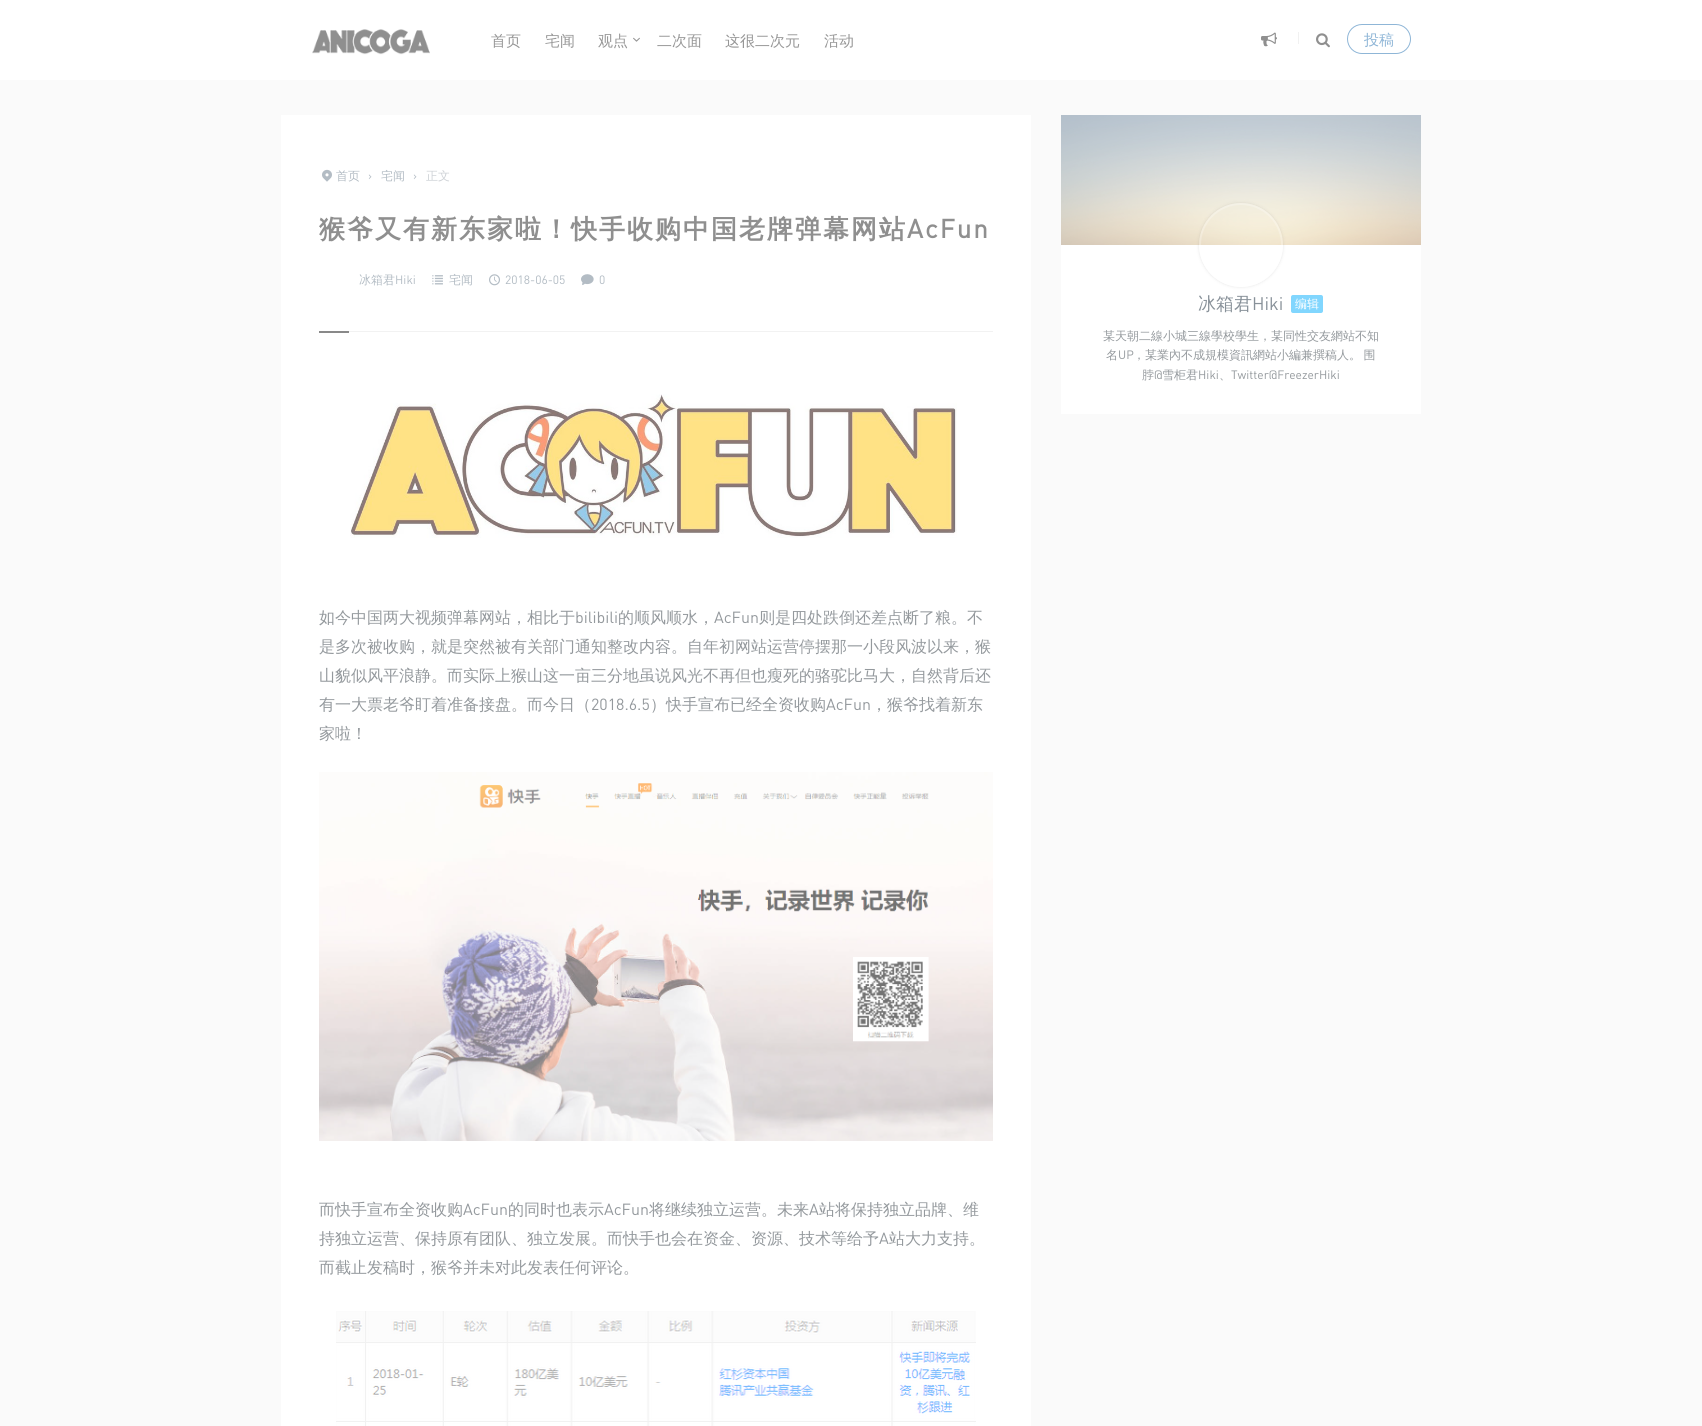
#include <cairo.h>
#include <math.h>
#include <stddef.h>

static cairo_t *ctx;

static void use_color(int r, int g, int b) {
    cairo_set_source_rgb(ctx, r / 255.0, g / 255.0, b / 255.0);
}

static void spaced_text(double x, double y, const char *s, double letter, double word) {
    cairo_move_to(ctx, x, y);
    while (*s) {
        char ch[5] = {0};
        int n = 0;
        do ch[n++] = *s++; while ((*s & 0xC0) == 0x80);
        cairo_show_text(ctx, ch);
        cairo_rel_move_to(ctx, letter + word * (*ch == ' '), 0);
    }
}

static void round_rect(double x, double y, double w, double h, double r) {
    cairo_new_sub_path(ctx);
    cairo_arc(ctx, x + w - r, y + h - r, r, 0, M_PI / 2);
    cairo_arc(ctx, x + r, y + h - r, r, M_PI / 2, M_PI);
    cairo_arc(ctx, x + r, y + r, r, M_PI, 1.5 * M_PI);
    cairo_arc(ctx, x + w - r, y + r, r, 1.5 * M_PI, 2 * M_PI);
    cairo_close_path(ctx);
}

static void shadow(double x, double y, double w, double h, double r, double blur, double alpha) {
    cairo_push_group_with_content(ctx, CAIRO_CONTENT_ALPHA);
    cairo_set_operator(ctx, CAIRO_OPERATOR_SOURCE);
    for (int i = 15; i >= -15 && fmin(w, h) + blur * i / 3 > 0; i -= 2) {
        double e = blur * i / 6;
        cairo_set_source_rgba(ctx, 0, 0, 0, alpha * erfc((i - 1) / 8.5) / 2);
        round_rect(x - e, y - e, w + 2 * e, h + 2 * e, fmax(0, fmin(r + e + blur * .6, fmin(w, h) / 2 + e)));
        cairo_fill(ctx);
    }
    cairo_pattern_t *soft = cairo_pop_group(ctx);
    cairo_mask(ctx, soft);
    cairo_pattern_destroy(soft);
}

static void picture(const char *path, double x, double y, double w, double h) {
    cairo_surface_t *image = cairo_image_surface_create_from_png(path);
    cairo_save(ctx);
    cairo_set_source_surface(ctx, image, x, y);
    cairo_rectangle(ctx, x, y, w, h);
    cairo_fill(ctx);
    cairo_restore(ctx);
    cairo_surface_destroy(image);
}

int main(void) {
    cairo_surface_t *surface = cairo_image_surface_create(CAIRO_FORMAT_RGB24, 1702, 1426);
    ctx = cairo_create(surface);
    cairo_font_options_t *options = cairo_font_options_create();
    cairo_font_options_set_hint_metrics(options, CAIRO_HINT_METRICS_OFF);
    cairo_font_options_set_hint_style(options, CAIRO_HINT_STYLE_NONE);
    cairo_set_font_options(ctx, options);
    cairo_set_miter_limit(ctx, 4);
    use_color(250, 250, 250);
    cairo_paint(ctx);
    use_color(255, 255, 255);
    cairo_rectangle(ctx, 0, 0, 1702, 80);
    cairo_fill(ctx);
    picture("img1.png", 312, 29, 118, 26);
    cairo_select_font_face(ctx, "WenQuanYi Zen Hei Medium", CAIRO_FONT_SLANT_NORMAL, CAIRO_FONT_WEIGHT_NORMAL);
    cairo_set_font_size(ctx, 15);
    use_color(150, 150, 150);
    cairo_move_to(ctx, 491, 46);
    cairo_show_text(ctx, "首页");
    cairo_move_to(ctx, 545, 46);
    cairo_show_text(ctx, "宅闻");
    cairo_move_to(ctx, 598, 46);
    cairo_show_text(ctx, "观点");
    picture("img2.png", 633, 37, 7, 5);
    cairo_move_to(ctx, 657, 46);
    cairo_show_text(ctx, "二次面");
    cairo_move_to(ctx, 725, 46);
    cairo_show_text(ctx, "这很二次元");
    cairo_move_to(ctx, 824, 46);
    cairo_show_text(ctx, "活动");
    picture("img3.png", 1261, 32, 16, 15);
    use_color(241, 241, 241);
    cairo_rectangle(ctx, 1298, 32, 1, 12);
    cairo_fill(ctx);
    picture("img4.png", 1316, 33, 14, 15);
    round_rect(1347.5, 24.5, 63, 29, 14.5);
    use_color(143, 182, 215);
    cairo_set_line_width(ctx, 1);
    cairo_stroke(ctx);
    cairo_move_to(ctx, 1364, 45);
    cairo_show_text(ctx, "投稿");
    use_color(255, 255, 255);
    cairo_rectangle(ctx, 281, 115, 750, 1311);
    cairo_fill(ctx);
    use_color(242, 242, 242);
    cairo_rectangle(ctx, 349, 331, 644, 1);
    cairo_fill(ctx);
    picture("img5.png", 322, 169, 10, 13);
    cairo_set_font_size(ctx, 12);
    use_color(179, 188, 196);
    cairo_move_to(ctx, 336, 180);
    cairo_show_text(ctx, "首页");
    cairo_select_font_face(ctx, "DIN", CAIRO_FONT_SLANT_NORMAL, CAIRO_FONT_WEIGHT_NORMAL);
    cairo_move_to(ctx, 368, 180);
    cairo_show_text(ctx, "›");
    cairo_select_font_face(ctx, "WenQuanYi Zen Hei Medium", CAIRO_FONT_SLANT_NORMAL, CAIRO_FONT_WEIGHT_NORMAL);
    cairo_move_to(ctx, 381, 180);
    cairo_show_text(ctx, "宅闻");
    cairo_select_font_face(ctx, "DIN", CAIRO_FONT_SLANT_NORMAL, CAIRO_FONT_WEIGHT_NORMAL);
    cairo_move_to(ctx, 413, 180);
    cairo_show_text(ctx, "›");
    cairo_select_font_face(ctx, "WenQuanYi Zen Hei Medium", CAIRO_FONT_SLANT_NORMAL, CAIRO_FONT_WEIGHT_NORMAL);
    use_color(206, 210, 214);
    cairo_move_to(ctx, 426, 180);
    cairo_show_text(ctx, "正文");
    cairo_select_font_face(ctx, "WenQuanYi Zen Hei", CAIRO_FONT_SLANT_NORMAL, CAIRO_FONT_WEIGHT_BOLD);
    cairo_set_font_size(ctx, 26);
    use_color(143, 143, 143);
    spaced_text(319, 238, "猴爷又有新东家啦！快手收购中国老牌弹幕网站", 2, 0);
    cairo_select_font_face(ctx, "DIN", CAIRO_FONT_SLANT_NORMAL, CAIRO_FONT_WEIGHT_BOLD);
    spaced_text(907, 238, "AcFun", 2, 0);
    cairo_select_font_face(ctx, "WenQuanYi Zen Hei Medium", CAIRO_FONT_SLANT_NORMAL, CAIRO_FONT_WEIGHT_NORMAL);
    cairo_set_font_size(ctx, 12);
    use_color(179, 188, 196);
    cairo_move_to(ctx, 359, 284);
    cairo_show_text(ctx, "冰箱君");
    cairo_select_font_face(ctx, "DIN", CAIRO_FONT_SLANT_NORMAL, CAIRO_FONT_WEIGHT_NORMAL);
    cairo_move_to(ctx, 395, 284);
    cairo_show_text(ctx, "Hiki");
    picture("img6.png", 432, 275, 11, 10);
    cairo_select_font_face(ctx, "WenQuanYi Zen Hei Medium", CAIRO_FONT_SLANT_NORMAL, CAIRO_FONT_WEIGHT_NORMAL);
    cairo_move_to(ctx, 449, 284);
    cairo_show_text(ctx, "宅闻");
    picture("img7.png", 489, 274, 11, 12);
    cairo_select_font_face(ctx, "DIN", CAIRO_FONT_SLANT_NORMAL, CAIRO_FONT_WEIGHT_NORMAL);
    cairo_move_to(ctx, 505, 284);
    cairo_show_text(ctx, "2018-06-05");
    picture("img8.png", 581, 274, 13, 12);
    cairo_move_to(ctx, 599, 284);
    cairo_show_text(ctx, "0");
    use_color(137, 137, 137);
    cairo_rectangle(ctx, 319, 331, 30, 2);
    cairo_fill(ctx);
    picture("img9.png", 350, 394, 607, 144);
    cairo_select_font_face(ctx, "WenQuanYi Zen Hei Medium", CAIRO_FONT_SLANT_NORMAL, CAIRO_FONT_WEIGHT_NORMAL);
    cairo_set_font_size(ctx, 16);
    use_color(148, 153, 157);
    cairo_move_to(ctx, 319, 623);
    cairo_show_text(ctx, "如今中国两大视频弹幕网站，相比于");
    cairo_select_font_face(ctx, "DIN", CAIRO_FONT_SLANT_NORMAL, CAIRO_FONT_WEIGHT_NORMAL);
    cairo_move_to(ctx, 575, 623);
    cairo_show_text(ctx, "bilibili");
    cairo_select_font_face(ctx, "WenQuanYi Zen Hei Medium", CAIRO_FONT_SLANT_NORMAL, CAIRO_FONT_WEIGHT_NORMAL);
    cairo_move_to(ctx, 618, 623);
    cairo_show_text(ctx, "的顺风顺水，");
    cairo_select_font_face(ctx, "DIN", CAIRO_FONT_SLANT_NORMAL, CAIRO_FONT_WEIGHT_NORMAL);
    cairo_move_to(ctx, 714, 623);
    cairo_show_text(ctx, "AcFun");
    cairo_select_font_face(ctx, "WenQuanYi Zen Hei Medium", CAIRO_FONT_SLANT_NORMAL, CAIRO_FONT_WEIGHT_NORMAL);
    cairo_move_to(ctx, 759, 623);
    cairo_show_text(ctx, "则是四处跌倒还差点断了粮。不");
    cairo_move_to(ctx, 319, 652);
    cairo_show_text(ctx, "是多次被收购，就是突然被有关部门通知整改内容。自年初网站运营停摆那一小段风波以来，猴");
    cairo_move_to(ctx, 319, 681);
    cairo_show_text(ctx, "山貌似风平浪静。而实际上猴山这一亩三分地虽说风光不再但也瘦死的骆驼比马大，自然背后还");
    cairo_move_to(ctx, 319, 710);
    cairo_show_text(ctx, "有一大票老爷盯着准备接盘。而今日（");
    cairo_select_font_face(ctx, "DIN", CAIRO_FONT_SLANT_NORMAL, CAIRO_FONT_WEIGHT_NORMAL);
    cairo_move_to(ctx, 591, 710);
    cairo_show_text(ctx, "2018.6.5");
    cairo_select_font_face(ctx, "WenQuanYi Zen Hei Medium", CAIRO_FONT_SLANT_NORMAL, CAIRO_FONT_WEIGHT_NORMAL);
    cairo_move_to(ctx, 650, 710);
    cairo_show_text(ctx, "）快手宣布已经全资收购");
    cairo_select_font_face(ctx, "DIN", CAIRO_FONT_SLANT_NORMAL, CAIRO_FONT_WEIGHT_NORMAL);
    cairo_move_to(ctx, 826, 710);
    cairo_show_text(ctx, "AcFun");
    cairo_select_font_face(ctx, "WenQuanYi Zen Hei Medium", CAIRO_FONT_SLANT_NORMAL, CAIRO_FONT_WEIGHT_NORMAL);
    cairo_move_to(ctx, 871, 710);
    cairo_show_text(ctx, "，猴爷找着新东");
    cairo_move_to(ctx, 319, 739);
    cairo_show_text(ctx, "家啦！");
    picture("img10.png", 319, 772, 674, 369);
    cairo_move_to(ctx, 319, 1215);
    cairo_show_text(ctx, "而快手宣布全资收购");
    cairo_select_font_face(ctx, "DIN", CAIRO_FONT_SLANT_NORMAL, CAIRO_FONT_WEIGHT_NORMAL);
    cairo_move_to(ctx, 463, 1215);
    cairo_show_text(ctx, "AcFun");
    cairo_select_font_face(ctx, "WenQuanYi Zen Hei Medium", CAIRO_FONT_SLANT_NORMAL, CAIRO_FONT_WEIGHT_NORMAL);
    cairo_move_to(ctx, 508, 1215);
    cairo_show_text(ctx, "的同时也表示");
    cairo_select_font_face(ctx, "DIN", CAIRO_FONT_SLANT_NORMAL, CAIRO_FONT_WEIGHT_NORMAL);
    cairo_move_to(ctx, 604, 1215);
    cairo_show_text(ctx, "AcFun");
    cairo_select_font_face(ctx, "WenQuanYi Zen Hei Medium", CAIRO_FONT_SLANT_NORMAL, CAIRO_FONT_WEIGHT_NORMAL);
    cairo_move_to(ctx, 649, 1215);
    cairo_show_text(ctx, "将继续独立运营。未来");
    cairo_select_font_face(ctx, "DIN", CAIRO_FONT_SLANT_NORMAL, CAIRO_FONT_WEIGHT_NORMAL);
    cairo_move_to(ctx, 809, 1215);
    cairo_show_text(ctx, "A");
    cairo_select_font_face(ctx, "WenQuanYi Zen Hei Medium", CAIRO_FONT_SLANT_NORMAL, CAIRO_FONT_WEIGHT_NORMAL);
    cairo_move_to(ctx, 819, 1215);
    cairo_show_text(ctx, "站将保持独立品牌、维");
    cairo_move_to(ctx, 319, 1244);
    cairo_show_text(ctx, "持独立运营、保持原有团队、独立发展。而快手也会在资金、资源、技术等给予");
    cairo_select_font_face(ctx, "DIN", CAIRO_FONT_SLANT_NORMAL, CAIRO_FONT_WEIGHT_NORMAL);
    cairo_move_to(ctx, 879, 1244);
    cairo_show_text(ctx, "A");
    cairo_select_font_face(ctx, "WenQuanYi Zen Hei Medium", CAIRO_FONT_SLANT_NORMAL, CAIRO_FONT_WEIGHT_NORMAL);
    cairo_move_to(ctx, 889, 1244);
    cairo_show_text(ctx, "站大力支持。");
    cairo_move_to(ctx, 319, 1273);
    cairo_show_text(ctx, "而截止发稿时，猴爷并未对此发表任何评论。");
    picture("img11.png", 336, 1311, 640, 115);
    use_color(255, 255, 255);
    cairo_rectangle(ctx, 1061, 245, 360, 169);
    cairo_fill(ctx);
    picture("img12.png", 1061, 115, 360, 130);
    cairo_save(ctx);
    cairo_set_fill_rule(ctx, CAIRO_FILL_RULE_EVEN_ODD);
    cairo_new_path(ctx);
    cairo_move_to(ctx, 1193, 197);
    cairo_line_to(ctx, 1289, 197);
    cairo_line_to(ctx, 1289, 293);
    cairo_line_to(ctx, 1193, 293);
    cairo_close_path(ctx);
    cairo_move_to(ctx, 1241, 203);
    cairo_curve_to(ctx, 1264, 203, 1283, 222, 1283, 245);
    cairo_curve_to(ctx, 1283, 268, 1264, 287, 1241, 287);
    cairo_curve_to(ctx, 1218, 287, 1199, 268, 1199, 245);
    cairo_curve_to(ctx, 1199, 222, 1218, 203, 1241, 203);
    cairo_close_path(ctx);
    cairo_clip(ctx);
    use_color(115, 115, 115);
    shadow(1199, 203, 84, 84, 42, 1.5, 0.2);
    cairo_restore(ctx);
    cairo_arc(ctx, 1241, 245, 41, 0, 2 * M_PI);
    cairo_set_source_rgba(ctx, 1, 1, 1, 0.25);
    cairo_set_line_width(ctx, 2);
    cairo_stroke(ctx);
    cairo_set_font_size(ctx, 18);
    use_color(136, 145, 153);
    cairo_move_to(ctx, 1198, 310);
    cairo_show_text(ctx, "冰箱君");
    cairo_select_font_face(ctx, "DIN", CAIRO_FONT_SLANT_NORMAL, CAIRO_FONT_WEIGHT_NORMAL);
    cairo_move_to(ctx, 1252, 310);
    cairo_show_text(ctx, "Hiki");
    use_color(129, 214, 254);
    round_rect(1290, 294, 34, 20, 3);
    cairo_fill_preserve(ctx);
    use_color(255, 255, 255);
    cairo_stroke(ctx);
    cairo_select_font_face(ctx, "WenQuanYi Zen Hei Medium", CAIRO_FONT_SLANT_NORMAL, CAIRO_FONT_WEIGHT_NORMAL);
    cairo_set_font_size(ctx, 12);
    cairo_move_to(ctx, 1295, 308);
    cairo_show_text(ctx, "编辑");
    use_color(148, 153, 157);
    cairo_move_to(ctx, 1103, 340);
    cairo_show_text(ctx, "某天朝二線小城三線學校學生，某同性交友網站不知");
    cairo_move_to(ctx, 1106, 359);
    cairo_show_text(ctx, "名");
    cairo_select_font_face(ctx, "DIN", CAIRO_FONT_SLANT_NORMAL, CAIRO_FONT_WEIGHT_NORMAL);
    cairo_move_to(ctx, 1118, 359);
    cairo_show_text(ctx, "UP");
    cairo_select_font_face(ctx, "WenQuanYi Zen Hei Medium", CAIRO_FONT_SLANT_NORMAL, CAIRO_FONT_WEIGHT_NORMAL);
    spaced_text(1133, 359, "，某業內不成規模資訊網站小編兼撰稿人。 围", 0, -1);
    cairo_move_to(ctx, 1142, 379);
    cairo_show_text(ctx, "脖");
    cairo_select_font_face(ctx, "DIN", CAIRO_FONT_SLANT_NORMAL, CAIRO_FONT_WEIGHT_NORMAL);
    cairo_move_to(ctx, 1154, 379);
    cairo_show_text(ctx, "@");
    cairo_select_font_face(ctx, "WenQuanYi Zen Hei Medium", CAIRO_FONT_SLANT_NORMAL, CAIRO_FONT_WEIGHT_NORMAL);
    cairo_move_to(ctx, 1162, 379);
    cairo_show_text(ctx, "雪柜君");
    cairo_select_font_face(ctx, "DIN", CAIRO_FONT_SLANT_NORMAL, CAIRO_FONT_WEIGHT_NORMAL);
    cairo_move_to(ctx, 1198, 379);
    cairo_show_text(ctx, "Hiki");
    cairo_select_font_face(ctx, "WenQuanYi Zen Hei Medium", CAIRO_FONT_SLANT_NORMAL, CAIRO_FONT_WEIGHT_NORMAL);
    cairo_move_to(ctx, 1219, 379);
    cairo_show_text(ctx, "、");
    cairo_select_font_face(ctx, "DIN", CAIRO_FONT_SLANT_NORMAL, CAIRO_FONT_WEIGHT_NORMAL);
    cairo_move_to(ctx, 1231, 379);
    cairo_show_text(ctx, "Twitter@FreezerHiki");
    cairo_surface_write_to_png(surface, "result.png");
    cairo_font_options_destroy(options);
    cairo_destroy(ctx);
    cairo_surface_destroy(surface);
    return 0;
}
